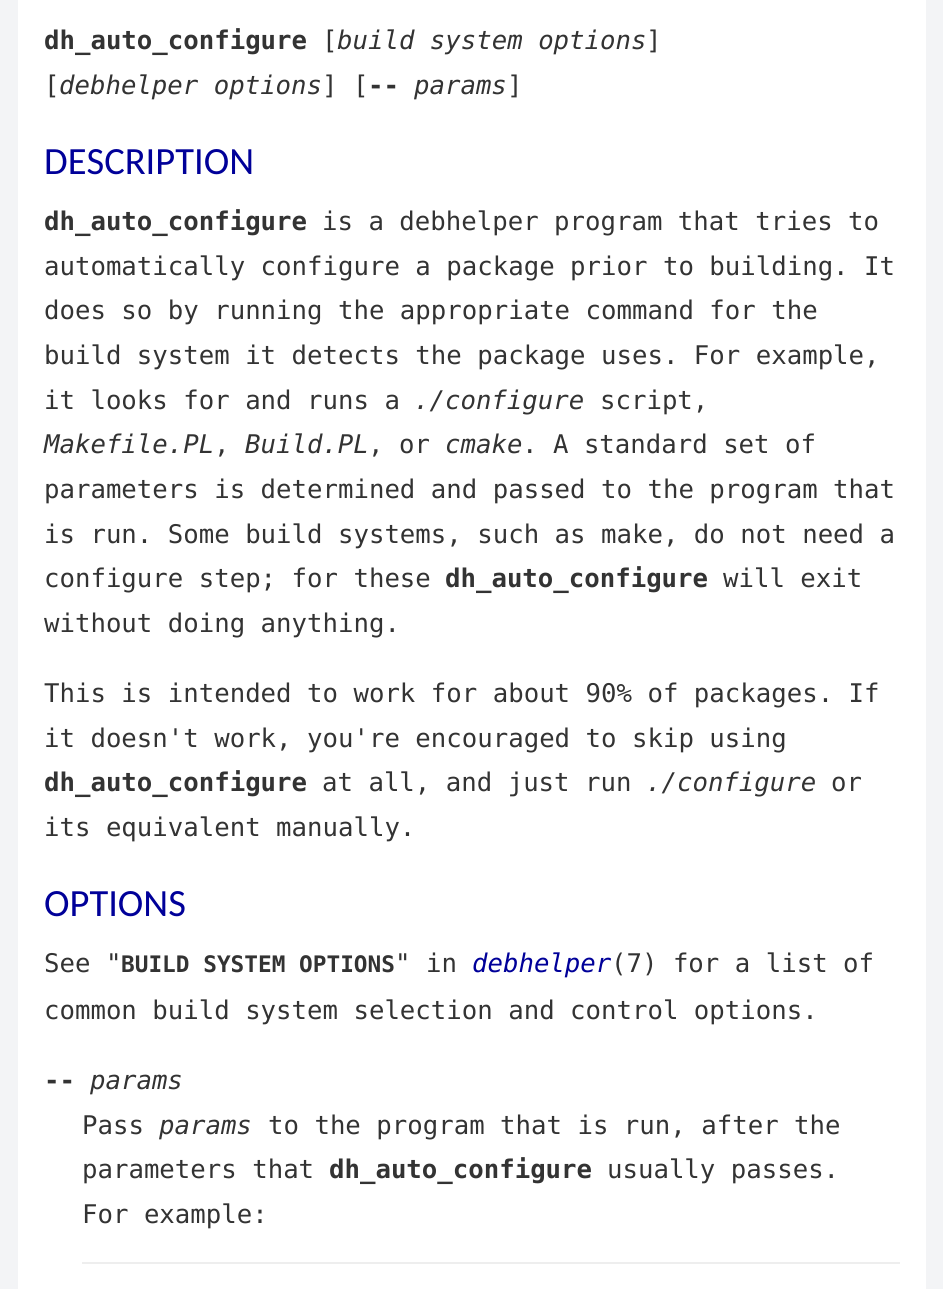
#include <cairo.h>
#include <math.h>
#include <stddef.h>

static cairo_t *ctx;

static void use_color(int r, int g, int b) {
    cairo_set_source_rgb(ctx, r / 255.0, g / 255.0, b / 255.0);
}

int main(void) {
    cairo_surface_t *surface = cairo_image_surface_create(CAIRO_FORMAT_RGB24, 943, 1289);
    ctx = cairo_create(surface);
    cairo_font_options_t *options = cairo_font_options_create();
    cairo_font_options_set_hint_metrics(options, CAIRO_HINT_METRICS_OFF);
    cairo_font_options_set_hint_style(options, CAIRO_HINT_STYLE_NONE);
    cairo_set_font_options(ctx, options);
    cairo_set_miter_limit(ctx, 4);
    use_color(243, 244, 246);
    cairo_paint(ctx);
    use_color(255, 255, 255);
    cairo_rectangle(ctx, 18, 0, 908, 1289);
    cairo_fill(ctx);
    cairo_select_font_face(ctx, "DejaVu Sans Mono", CAIRO_FONT_SLANT_NORMAL, CAIRO_FONT_WEIGHT_BOLD);
    cairo_set_font_size(ctx, 25.7);
    use_color(51, 51, 51);
    cairo_move_to(ctx, 44, 49);
    cairo_show_text(ctx, "dh_auto_configure");
    cairo_select_font_face(ctx, "DejaVu Sans Mono", CAIRO_FONT_SLANT_NORMAL, CAIRO_FONT_WEIGHT_NORMAL);
    cairo_move_to(ctx, 322, 49);
    cairo_show_text(ctx, "[");
    cairo_select_font_face(ctx, "DejaVu Sans Mono", CAIRO_FONT_SLANT_ITALIC, CAIRO_FONT_WEIGHT_NORMAL);
    cairo_move_to(ctx, 337, 49);
    cairo_show_text(ctx, "build system options");
    cairo_select_font_face(ctx, "DejaVu Sans Mono", CAIRO_FONT_SLANT_NORMAL, CAIRO_FONT_WEIGHT_NORMAL);
    cairo_move_to(ctx, 646, 49);
    cairo_show_text(ctx, "]");
    cairo_move_to(ctx, 44, 94);
    cairo_show_text(ctx, "[");
    cairo_select_font_face(ctx, "DejaVu Sans Mono", CAIRO_FONT_SLANT_ITALIC, CAIRO_FONT_WEIGHT_NORMAL);
    cairo_move_to(ctx, 59, 94);
    cairo_show_text(ctx, "debhelper options");
    cairo_select_font_face(ctx, "DejaVu Sans Mono", CAIRO_FONT_SLANT_NORMAL, CAIRO_FONT_WEIGHT_NORMAL);
    cairo_move_to(ctx, 322, 94);
    cairo_show_text(ctx, "] [");
    cairo_select_font_face(ctx, "DejaVu Sans Mono", CAIRO_FONT_SLANT_NORMAL, CAIRO_FONT_WEIGHT_BOLD);
    cairo_move_to(ctx, 368, 94);
    cairo_show_text(ctx, "--");
    cairo_select_font_face(ctx, "DejaVu Sans Mono", CAIRO_FONT_SLANT_ITALIC, CAIRO_FONT_WEIGHT_NORMAL);
    cairo_move_to(ctx, 414, 94);
    cairo_show_text(ctx, "params");
    cairo_select_font_face(ctx, "DejaVu Sans Mono", CAIRO_FONT_SLANT_NORMAL, CAIRO_FONT_WEIGHT_NORMAL);
    cairo_move_to(ctx, 507, 94);
    cairo_show_text(ctx, "]");
    cairo_select_font_face(ctx, "Carlito", CAIRO_FONT_SLANT_NORMAL, CAIRO_FONT_WEIGHT_NORMAL);
    cairo_set_font_size(ctx, 38.5);
    use_color(0, 0, 153);
    cairo_move_to(ctx, 44, 174);
    cairo_show_text(ctx, "DESCRIPTION");
    cairo_select_font_face(ctx, "DejaVu Sans Mono", CAIRO_FONT_SLANT_NORMAL, CAIRO_FONT_WEIGHT_BOLD);
    cairo_set_font_size(ctx, 25.7);
    use_color(51, 51, 51);
    cairo_move_to(ctx, 44, 230);
    cairo_show_text(ctx, "dh_auto_configure");
    cairo_select_font_face(ctx, "DejaVu Sans Mono", CAIRO_FONT_SLANT_NORMAL, CAIRO_FONT_WEIGHT_NORMAL);
    cairo_move_to(ctx, 322, 230);
    cairo_show_text(ctx, "is a debhelper program that tries to");
    cairo_move_to(ctx, 44, 275);
    cairo_show_text(ctx, "automatically configure a package prior to building. It");
    cairo_move_to(ctx, 44, 319);
    cairo_show_text(ctx, "does so by running the appropriate command for the");
    cairo_move_to(ctx, 44, 364);
    cairo_show_text(ctx, "build system it detects the package uses. For example,");
    cairo_move_to(ctx, 44, 409);
    cairo_show_text(ctx, "it looks for and runs a");
    cairo_select_font_face(ctx, "DejaVu Sans Mono", CAIRO_FONT_SLANT_ITALIC, CAIRO_FONT_WEIGHT_NORMAL);
    cairo_move_to(ctx, 414, 409);
    cairo_show_text(ctx, "./configure");
    cairo_select_font_face(ctx, "DejaVu Sans Mono", CAIRO_FONT_SLANT_NORMAL, CAIRO_FONT_WEIGHT_NORMAL);
    cairo_move_to(ctx, 600, 409);
    cairo_show_text(ctx, "script,");
    cairo_select_font_face(ctx, "DejaVu Sans Mono", CAIRO_FONT_SLANT_ITALIC, CAIRO_FONT_WEIGHT_NORMAL);
    cairo_move_to(ctx, 44, 453);
    cairo_show_text(ctx, "Makefile.PL");
    cairo_select_font_face(ctx, "DejaVu Sans Mono", CAIRO_FONT_SLANT_NORMAL, CAIRO_FONT_WEIGHT_NORMAL);
    cairo_move_to(ctx, 214, 453);
    cairo_show_text(ctx, ",");
    cairo_select_font_face(ctx, "DejaVu Sans Mono", CAIRO_FONT_SLANT_ITALIC, CAIRO_FONT_WEIGHT_NORMAL);
    cairo_move_to(ctx, 245, 453);
    cairo_show_text(ctx, "Build.PL");
    cairo_select_font_face(ctx, "DejaVu Sans Mono", CAIRO_FONT_SLANT_NORMAL, CAIRO_FONT_WEIGHT_NORMAL);
    cairo_move_to(ctx, 368, 453);
    cairo_show_text(ctx, ", or");
    cairo_select_font_face(ctx, "DejaVu Sans Mono", CAIRO_FONT_SLANT_ITALIC, CAIRO_FONT_WEIGHT_NORMAL);
    cairo_move_to(ctx, 445, 453);
    cairo_show_text(ctx, "cmake");
    cairo_select_font_face(ctx, "DejaVu Sans Mono", CAIRO_FONT_SLANT_NORMAL, CAIRO_FONT_WEIGHT_NORMAL);
    cairo_move_to(ctx, 522, 453);
    cairo_show_text(ctx, ". A standard set of");
    cairo_move_to(ctx, 44, 498);
    cairo_show_text(ctx, "parameters is determined and passed to the program that");
    cairo_move_to(ctx, 44, 543);
    cairo_show_text(ctx, "is run. Some build systems, such as make, do not need a");
    cairo_move_to(ctx, 44, 587);
    cairo_show_text(ctx, "configure step; for these");
    cairo_select_font_face(ctx, "DejaVu Sans Mono", CAIRO_FONT_SLANT_NORMAL, CAIRO_FONT_WEIGHT_BOLD);
    cairo_move_to(ctx, 445, 587);
    cairo_show_text(ctx, "dh_auto_configure");
    cairo_select_font_face(ctx, "DejaVu Sans Mono", CAIRO_FONT_SLANT_NORMAL, CAIRO_FONT_WEIGHT_NORMAL);
    cairo_move_to(ctx, 723, 587);
    cairo_show_text(ctx, "will exit");
    cairo_move_to(ctx, 44, 632);
    cairo_show_text(ctx, "without doing anything.");
    cairo_move_to(ctx, 44, 702);
    cairo_show_text(ctx, "This is intended to work for about 90% of packages. If");
    cairo_move_to(ctx, 44, 747);
    cairo_show_text(ctx, "it doesn't work, you're encouraged to skip using");
    cairo_select_font_face(ctx, "DejaVu Sans Mono", CAIRO_FONT_SLANT_NORMAL, CAIRO_FONT_WEIGHT_BOLD);
    cairo_move_to(ctx, 44, 791);
    cairo_show_text(ctx, "dh_auto_configure");
    cairo_select_font_face(ctx, "DejaVu Sans Mono", CAIRO_FONT_SLANT_NORMAL, CAIRO_FONT_WEIGHT_NORMAL);
    cairo_move_to(ctx, 322, 791);
    cairo_show_text(ctx, "at all, and just run");
    cairo_select_font_face(ctx, "DejaVu Sans Mono", CAIRO_FONT_SLANT_ITALIC, CAIRO_FONT_WEIGHT_NORMAL);
    cairo_move_to(ctx, 646, 791);
    cairo_show_text(ctx, "./configure");
    cairo_select_font_face(ctx, "DejaVu Sans Mono", CAIRO_FONT_SLANT_NORMAL, CAIRO_FONT_WEIGHT_NORMAL);
    cairo_move_to(ctx, 831, 791);
    cairo_show_text(ctx, "or");
    cairo_move_to(ctx, 44, 836);
    cairo_show_text(ctx, "its equivalent manually.");
    cairo_select_font_face(ctx, "Carlito", CAIRO_FONT_SLANT_NORMAL, CAIRO_FONT_WEIGHT_NORMAL);
    cairo_set_font_size(ctx, 38.5);
    use_color(0, 0, 153);
    cairo_move_to(ctx, 44, 916);
    cairo_show_text(ctx, "OPTIONS");
    cairo_select_font_face(ctx, "DejaVu Sans Mono", CAIRO_FONT_SLANT_NORMAL, CAIRO_FONT_WEIGHT_NORMAL);
    cairo_set_font_size(ctx, 25.7);
    use_color(51, 51, 51);
    cairo_move_to(ctx, 44, 972);
    cairo_show_text(ctx, "See \"");
    cairo_select_font_face(ctx, "DejaVu Sans Mono", CAIRO_FONT_SLANT_NORMAL, CAIRO_FONT_WEIGHT_BOLD);
    cairo_set_font_size(ctx, 22.75);
    cairo_move_to(ctx, 121, 972);
    cairo_show_text(ctx, "BUILD SYSTEM OPTIONS");
    cairo_select_font_face(ctx, "DejaVu Sans Mono", CAIRO_FONT_SLANT_NORMAL, CAIRO_FONT_WEIGHT_NORMAL);
    cairo_set_font_size(ctx, 25.7);
    cairo_move_to(ctx, 395, 972);
    cairo_show_text(ctx, "\" in");
    cairo_select_font_face(ctx, "DejaVu Sans Mono", CAIRO_FONT_SLANT_ITALIC, CAIRO_FONT_WEIGHT_NORMAL);
    use_color(0, 0, 153);
    cairo_move_to(ctx, 472, 972);
    cairo_show_text(ctx, "debhelper");
    cairo_select_font_face(ctx, "DejaVu Sans Mono", CAIRO_FONT_SLANT_NORMAL, CAIRO_FONT_WEIGHT_NORMAL);
    use_color(51, 51, 51);
    cairo_move_to(ctx, 611, 972);
    cairo_show_text(ctx, "(7) for a list of");
    cairo_move_to(ctx, 44, 1019);
    cairo_show_text(ctx, "common build system selection and control options.");
    cairo_select_font_face(ctx, "DejaVu Sans Mono", CAIRO_FONT_SLANT_NORMAL, CAIRO_FONT_WEIGHT_BOLD);
    cairo_move_to(ctx, 44, 1089);
    cairo_show_text(ctx, "--");
    cairo_select_font_face(ctx, "DejaVu Sans Mono", CAIRO_FONT_SLANT_ITALIC, CAIRO_FONT_WEIGHT_NORMAL);
    cairo_move_to(ctx, 90, 1089);
    cairo_show_text(ctx, "params");
    cairo_select_font_face(ctx, "DejaVu Sans Mono", CAIRO_FONT_SLANT_NORMAL, CAIRO_FONT_WEIGHT_NORMAL);
    cairo_move_to(ctx, 82, 1134);
    cairo_show_text(ctx, "Pass");
    cairo_select_font_face(ctx, "DejaVu Sans Mono", CAIRO_FONT_SLANT_ITALIC, CAIRO_FONT_WEIGHT_NORMAL);
    cairo_move_to(ctx, 159, 1134);
    cairo_show_text(ctx, "params");
    cairo_select_font_face(ctx, "DejaVu Sans Mono", CAIRO_FONT_SLANT_NORMAL, CAIRO_FONT_WEIGHT_NORMAL);
    cairo_move_to(ctx, 268, 1134);
    cairo_show_text(ctx, "to the program that is run, after the");
    cairo_move_to(ctx, 82, 1178);
    cairo_show_text(ctx, "parameters that");
    cairo_select_font_face(ctx, "DejaVu Sans Mono", CAIRO_FONT_SLANT_NORMAL, CAIRO_FONT_WEIGHT_BOLD);
    cairo_move_to(ctx, 329, 1178);
    cairo_show_text(ctx, "dh_auto_configure");
    cairo_select_font_face(ctx, "DejaVu Sans Mono", CAIRO_FONT_SLANT_NORMAL, CAIRO_FONT_WEIGHT_NORMAL);
    cairo_move_to(ctx, 607, 1178);
    cairo_show_text(ctx, "usually passes.");
    cairo_move_to(ctx, 82, 1223);
    cairo_show_text(ctx, "For example:");
    use_color(238, 238, 238);
    cairo_rectangle(ctx, 82, 1262, 818, 2);
    cairo_fill(ctx);
    cairo_surface_write_to_png(surface, "result.png");
    cairo_font_options_destroy(options);
    cairo_destroy(ctx);
    cairo_surface_destroy(surface);
    return 0;
}
